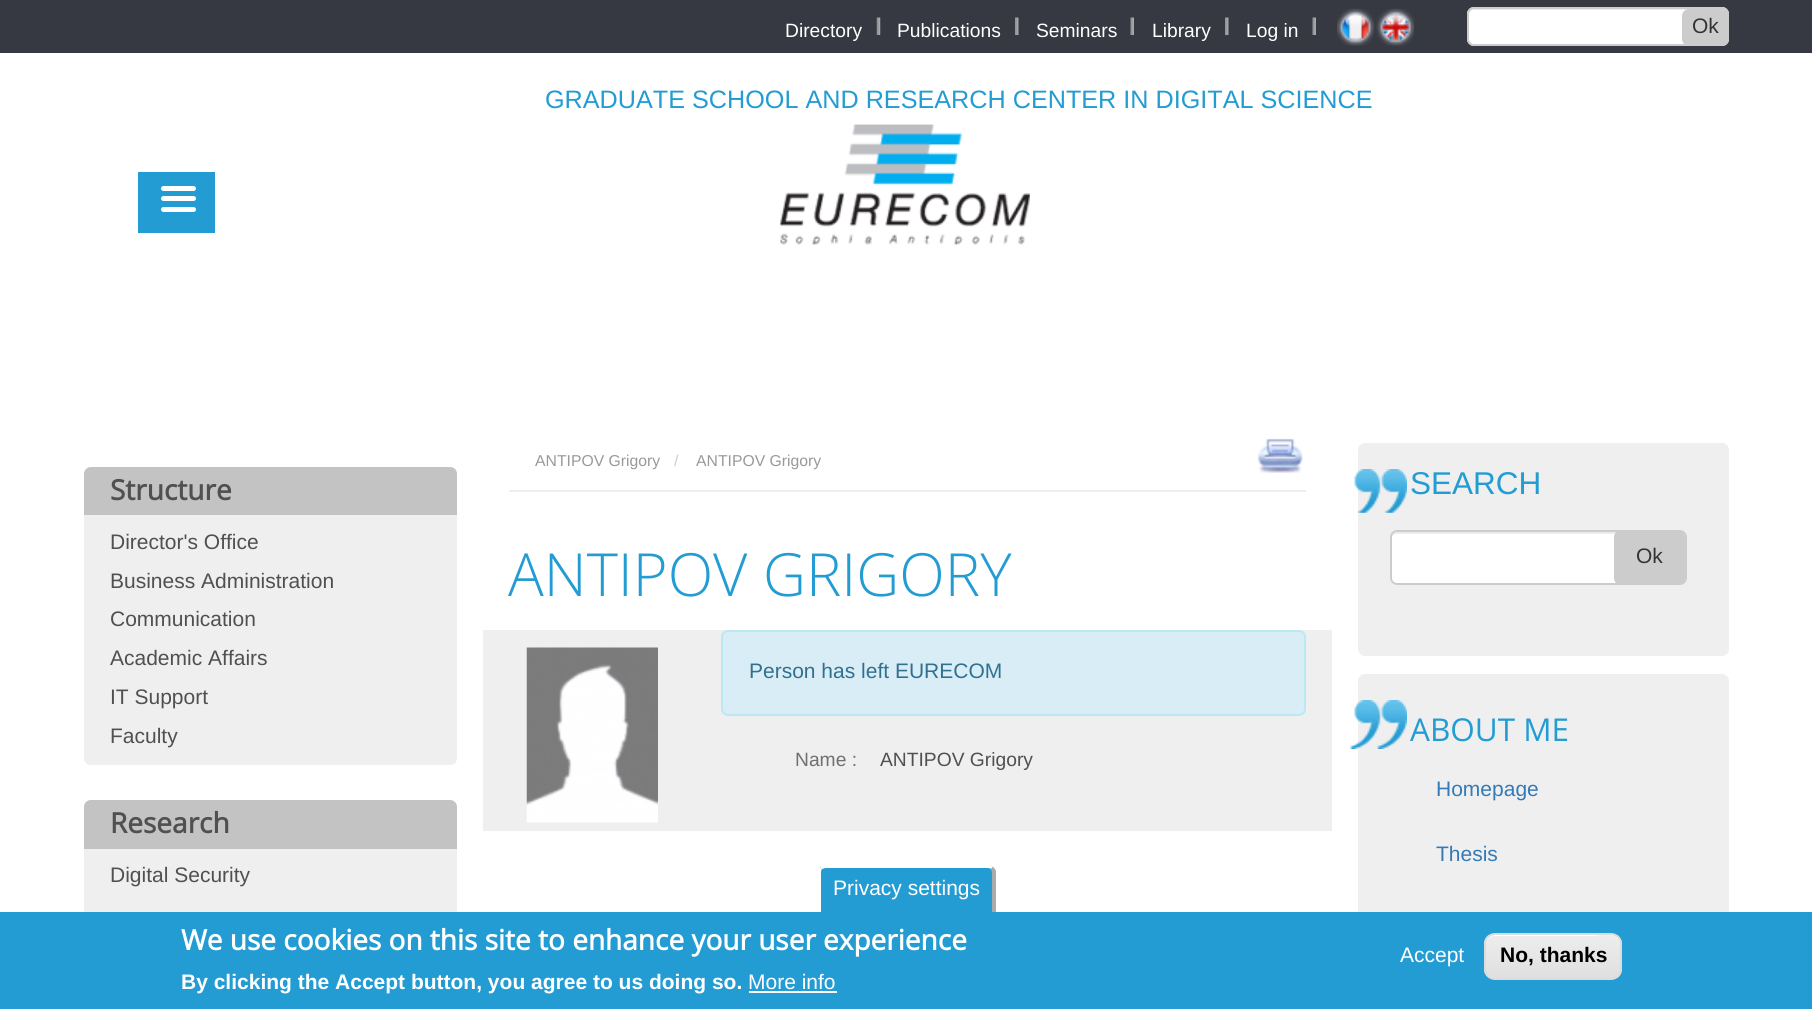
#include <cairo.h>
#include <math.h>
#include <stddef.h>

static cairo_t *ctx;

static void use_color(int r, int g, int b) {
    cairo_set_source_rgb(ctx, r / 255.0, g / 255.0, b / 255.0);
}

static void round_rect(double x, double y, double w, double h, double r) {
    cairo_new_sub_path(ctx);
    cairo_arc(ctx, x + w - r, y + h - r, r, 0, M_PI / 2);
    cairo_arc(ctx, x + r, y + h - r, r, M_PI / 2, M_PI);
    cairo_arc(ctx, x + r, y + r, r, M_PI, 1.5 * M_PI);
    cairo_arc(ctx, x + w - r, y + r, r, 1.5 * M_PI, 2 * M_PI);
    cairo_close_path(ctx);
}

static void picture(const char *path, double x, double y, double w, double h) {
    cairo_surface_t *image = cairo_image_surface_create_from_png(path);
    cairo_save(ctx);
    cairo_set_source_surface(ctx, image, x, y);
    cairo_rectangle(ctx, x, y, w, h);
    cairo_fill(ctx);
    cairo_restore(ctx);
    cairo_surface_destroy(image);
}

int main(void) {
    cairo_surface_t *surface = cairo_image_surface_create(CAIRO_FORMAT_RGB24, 1812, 1009);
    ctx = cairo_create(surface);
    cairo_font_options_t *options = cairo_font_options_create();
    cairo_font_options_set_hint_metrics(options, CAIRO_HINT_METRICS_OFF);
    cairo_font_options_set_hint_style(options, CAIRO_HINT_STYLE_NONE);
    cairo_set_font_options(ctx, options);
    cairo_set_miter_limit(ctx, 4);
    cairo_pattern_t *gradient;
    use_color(255, 255, 255);
    cairo_paint(ctx);
    use_color(54, 56, 66);
    cairo_rectangle(ctx, 0, 0, 1812, 53);
    cairo_fill(ctx);
    picture("img1.png", 876, 17, 5, 18);
    cairo_select_font_face(ctx, "Liberation Sans", CAIRO_FONT_SLANT_NORMAL, CAIRO_FONT_WEIGHT_NORMAL);
    cairo_set_font_size(ctx, 19.25);
    use_color(255, 255, 255);
    cairo_move_to(ctx, 785, 37);
    cairo_show_text(ctx, "Directory");
    picture("img2.png", 1015, 17, 4, 18);
    cairo_move_to(ctx, 897, 37);
    cairo_show_text(ctx, "Publications");
    picture("img3.png", 1130, 17, 4, 18);
    cairo_move_to(ctx, 1036, 37);
    cairo_show_text(ctx, "Seminars");
    picture("img2.png", 1225, 17, 4, 18);
    cairo_move_to(ctx, 1152, 37);
    cairo_show_text(ctx, "Library");
    picture("img3.png", 1312, 17, 4, 18);
    cairo_move_to(ctx, 1246, 37);
    cairo_show_text(ctx, "Log in");
    picture("img4.png", 1337, 8, 38, 38);
    picture("img5.png", 1376, 8, 38, 38);
    round_rect(1467, 7, 262, 39, 7);
    cairo_fill(ctx);
    use_color(236, 236, 236);
    cairo_new_path(ctx);
    cairo_move_to(ctx, 1474, 10);
    cairo_line_to(ctx, 1722, 10);
    cairo_curve_to(ctx, 1725, 10, 1727, 13, 1727, 16);
    cairo_line_to(ctx, 1727, 14);
    cairo_curve_to(ctx, 1727, 11, 1725, 9, 1722, 9);
    cairo_line_to(ctx, 1473, 9);
    cairo_curve_to(ctx, 1470, 9, 1468, 11, 1468, 14);
    cairo_line_to(ctx, 1468, 16);
    cairo_curve_to(ctx, 1468, 13, 1471, 10, 1474, 10);
    cairo_close_path(ctx);
    cairo_fill(ctx);
    round_rect(1468, 8, 260, 37, 6);
    use_color(204, 204, 204);
    cairo_stroke(ctx);
    round_rect(1683, 10, 45, 35, 6);
    cairo_fill_preserve(ctx);
    cairo_stroke(ctx);
    cairo_set_font_size(ctx, 21);
    use_color(51, 51, 51);
    cairo_move_to(ctx, 1692, 33);
    cairo_show_text(ctx, "Ok");
    cairo_set_font_size(ctx, 25.2);
    use_color(35, 156, 211);
    cairo_move_to(ctx, 545, 108);
    cairo_show_text(ctx, "GRADUATE SCHOOL AND RESEARCH CENTER IN DIGITAL SCIENCE");
    picture("img6.png", 780, 124, 250, 121);
    cairo_rectangle(ctx, 138, 172, 77, 61);
    cairo_fill(ctx);
    use_color(255, 255, 255);
    round_rect(161, 186, 35, 5, 2.5);
    cairo_fill(ctx);
    round_rect(161, 196, 35, 5, 2.5);
    cairo_fill(ctx);
    round_rect(161, 207, 35, 5, 2.5);
    cairo_fill(ctx);
    use_color(195, 195, 195);
    cairo_new_path(ctx);
    cairo_move_to(ctx, 91, 467);
    cairo_line_to(ctx, 450, 467);
    cairo_curve_to(ctx, 454, 467, 457, 470, 457, 474);
    cairo_line_to(ctx, 457, 515);
    cairo_line_to(ctx, 84, 515);
    cairo_line_to(ctx, 84, 474);
    cairo_curve_to(ctx, 84, 470, 87, 467, 91, 467);
    cairo_close_path(ctx);
    cairo_fill(ctx);
    cairo_select_font_face(ctx, "Open Sans", CAIRO_FONT_SLANT_NORMAL, CAIRO_FONT_WEIGHT_BOLD);
    cairo_set_font_size(ctx, 28);
    use_color(80, 80, 80);
    cairo_move_to(ctx, 110, 500);
    cairo_show_text(ctx, "Structure");
    use_color(239, 239, 239);
    cairo_new_path(ctx);
    cairo_move_to(ctx, 84, 515);
    cairo_line_to(ctx, 457, 515);
    cairo_line_to(ctx, 457, 758);
    cairo_curve_to(ctx, 457, 762, 454, 765, 450, 765);
    cairo_line_to(ctx, 91, 765);
    cairo_curve_to(ctx, 87, 765, 84, 762, 84, 758);
    cairo_close_path(ctx);
    cairo_fill(ctx);
    cairo_select_font_face(ctx, "Liberation Sans", CAIRO_FONT_SLANT_NORMAL, CAIRO_FONT_WEIGHT_NORMAL);
    cairo_set_font_size(ctx, 21);
    use_color(80, 80, 80);
    cairo_move_to(ctx, 110, 549);
    cairo_show_text(ctx, "Director's Office");
    cairo_move_to(ctx, 110, 588);
    cairo_show_text(ctx, "Business Administration");
    cairo_move_to(ctx, 110, 626);
    cairo_show_text(ctx, "Communication");
    cairo_move_to(ctx, 110, 665);
    cairo_show_text(ctx, "Academic Affairs");
    cairo_move_to(ctx, 110, 704);
    cairo_show_text(ctx, "IT Support");
    cairo_move_to(ctx, 110, 743);
    cairo_show_text(ctx, "Faculty");
    use_color(195, 195, 195);
    cairo_new_path(ctx);
    cairo_move_to(ctx, 91, 800);
    cairo_line_to(ctx, 450, 800);
    cairo_curve_to(ctx, 454, 800, 457, 803, 457, 807);
    cairo_line_to(ctx, 457, 849);
    cairo_line_to(ctx, 84, 849);
    cairo_line_to(ctx, 84, 807);
    cairo_curve_to(ctx, 84, 803, 87, 800, 91, 800);
    cairo_close_path(ctx);
    cairo_fill(ctx);
    cairo_select_font_face(ctx, "Open Sans", CAIRO_FONT_SLANT_NORMAL, CAIRO_FONT_WEIGHT_BOLD);
    cairo_set_font_size(ctx, 28);
    use_color(80, 80, 80);
    cairo_move_to(ctx, 110, 833);
    cairo_show_text(ctx, "Research");
    use_color(239, 239, 239);
    cairo_rectangle(ctx, 84, 849, 373, 63);
    cairo_fill(ctx);
    cairo_select_font_face(ctx, "Liberation Sans", CAIRO_FONT_SLANT_NORMAL, CAIRO_FONT_WEIGHT_NORMAL);
    cairo_set_font_size(ctx, 21);
    use_color(80, 80, 80);
    cairo_move_to(ctx, 110, 882);
    cairo_show_text(ctx, "Digital Security");
    use_color(238, 238, 238);
    cairo_rectangle(ctx, 509, 490, 797, 2);
    cairo_fill(ctx);
    cairo_set_font_size(ctx, 15.75);
    use_color(153, 153, 153);
    cairo_move_to(ctx, 535, 466);
    cairo_show_text(ctx, "ANTIPOV Grigory");
    use_color(204, 204, 204);
    cairo_move_to(ctx, 674, 466);
    cairo_show_text(ctx, "/");
    use_color(153, 153, 153);
    cairo_move_to(ctx, 696, 466);
    cairo_show_text(ctx, "ANTIPOV Grigory");
    picture("img7.png", 1257, 438, 46, 35);
    cairo_select_font_face(ctx, "Open Sans Light", CAIRO_FONT_SLANT_NORMAL, CAIRO_FONT_WEIGHT_NORMAL);
    cairo_set_font_size(ctx, 59.5);
    use_color(35, 156, 211);
    cairo_move_to(ctx, 508, 596);
    cairo_show_text(ctx, "ANTIPOV GRIGORY");
    use_color(239, 239, 239);
    cairo_rectangle(ctx, 483, 630, 849, 201);
    cairo_fill(ctx);
    picture("img8.png", 526, 647, 132, 176);
    use_color(217, 237, 247);
    round_rect(722, 631, 583, 84, 6);
    cairo_fill_preserve(ctx);
    use_color(188, 232, 241);
    cairo_stroke(ctx);
    cairo_select_font_face(ctx, "Liberation Sans", CAIRO_FONT_SLANT_NORMAL, CAIRO_FONT_WEIGHT_NORMAL);
    cairo_set_font_size(ctx, 21);
    use_color(49, 112, 143);
    cairo_move_to(ctx, 749, 678);
    cairo_show_text(ctx, "Person has left EURECOM");
    cairo_set_font_size(ctx, 19.25);
    use_color(112, 112, 112);
    cairo_move_to(ctx, 795, 766);
    cairo_show_text(ctx, "Name :");
    use_color(80, 80, 80);
    cairo_move_to(ctx, 880, 766);
    cairo_show_text(ctx, "ANTIPOV Grigory");
    use_color(239, 239, 239);
    round_rect(1358, 443, 371, 213, 7);
    cairo_fill(ctx);
    picture("img9.png", 1354, 469, 53, 44);
    cairo_set_font_size(ctx, 31.5);
    use_color(35, 156, 211);
    cairo_move_to(ctx, 1410, 494);
    cairo_show_text(ctx, "SEARCH");
    use_color(255, 255, 255);
    round_rect(1390, 530, 297, 55, 7);
    cairo_fill(ctx);
    use_color(236, 236, 236);
    cairo_new_path(ctx);
    cairo_move_to(ctx, 1396, 534);
    cairo_line_to(ctx, 1680, 534);
    cairo_curve_to(ctx, 1683, 534, 1685, 536, 1685, 539);
    cairo_curve_to(ctx, 1685, 536, 1684, 532, 1680, 532);
    cairo_line_to(ctx, 1395, 532);
    cairo_curve_to(ctx, 1391, 533, 1391, 536, 1391, 539);
    cairo_curve_to(ctx, 1391, 536, 1394, 534, 1396, 534);
    cairo_close_path(ctx);
    cairo_fill(ctx);
    round_rect(1391, 531, 295, 53, 6);
    use_color(204, 204, 204);
    cairo_stroke(ctx);
    round_rect(1615, 531, 69, 53, 6);
    cairo_fill_preserve(ctx);
    cairo_stroke(ctx);
    cairo_set_font_size(ctx, 21);
    use_color(51, 51, 51);
    cairo_move_to(ctx, 1636, 563);
    cairo_show_text(ctx, "Ok");
    use_color(239, 239, 239);
    round_rect(1358, 674, 371, 301, 7);
    cairo_fill(ctx);
    picture("img10.png", 1349, 700, 58, 49);
    cairo_select_font_face(ctx, "Open Sans", CAIRO_FONT_SLANT_NORMAL, CAIRO_FONT_WEIGHT_NORMAL);
    cairo_set_font_size(ctx, 31.5);
    use_color(35, 156, 211);
    cairo_move_to(ctx, 1410, 741);
    cairo_show_text(ctx, "ABOUT ME");
    cairo_select_font_face(ctx, "Liberation Sans", CAIRO_FONT_SLANT_NORMAL, CAIRO_FONT_WEIGHT_NORMAL);
    cairo_set_font_size(ctx, 21);
    use_color(51, 122, 183);
    cairo_move_to(ctx, 1436, 796);
    cairo_show_text(ctx, "Homepage");
    cairo_move_to(ctx, 1436, 861);
    cairo_show_text(ctx, "Thesis");
    use_color(35, 156, 211);
    cairo_rectangle(ctx, 0, 912, 1812, 97);
    cairo_fill(ctx);
    cairo_new_path(ctx);
    cairo_move_to(ctx, 826, 865);
    cairo_line_to(ctx, 987, 865);
    cairo_curve_to(ctx, 992, 865, 996, 869, 996, 874);
    cairo_line_to(ctx, 996, 912);
    cairo_line_to(ctx, 817, 912);
    cairo_line_to(ctx, 817, 874);
    cairo_curve_to(ctx, 817, 869, 821, 865, 826, 865);
    cairo_close_path(ctx);
    cairo_fill(ctx);
    use_color(255, 255, 255);
    cairo_new_path(ctx);
    cairo_move_to(ctx, 826, 868);
    cairo_curve_to(ctx, 824, 868, 823, 869, 822, 869);
    cairo_line_to(ctx, 820, 867);
    cairo_line_to(ctx, 824, 864);
    cairo_line_to(ctx, 989, 864);
    cairo_line_to(ctx, 993, 867);
    cairo_line_to(ctx, 991, 869);
    cairo_curve_to(ctx, 990, 868, 988, 868, 987, 868);
    cairo_close_path(ctx);
    cairo_fill(ctx);
    use_color(170, 170, 170);
    cairo_new_path(ctx);
    cairo_move_to(ctx, 992, 912);
    cairo_line_to(ctx, 992, 873);
    cairo_curve_to(ctx, 992, 871, 991, 870, 991, 869);
    cairo_line_to(ctx, 993, 867);
    cairo_curve_to(ctx, 994, 868, 995, 869, 996, 871);
    cairo_line_to(ctx, 996, 912);
    cairo_close_path(ctx);
    cairo_fill(ctx);
    use_color(255, 255, 255);
    cairo_new_path(ctx);
    cairo_move_to(ctx, 817, 912);
    cairo_line_to(ctx, 817, 871);
    cairo_curve_to(ctx, 818, 869, 818, 868, 820, 867);
    cairo_line_to(ctx, 822, 869);
    cairo_curve_to(ctx, 821, 870, 821, 872, 821, 873);
    cairo_line_to(ctx, 821, 912);
    cairo_close_path(ctx);
    cairo_fill(ctx);
    cairo_move_to(ctx, 833, 895);
    cairo_show_text(ctx, "Privacy settings");
    cairo_select_font_face(ctx, "Open Sans", CAIRO_FONT_SLANT_NORMAL, CAIRO_FONT_WEIGHT_BOLD);
    cairo_set_font_size(ctx, 28);
    cairo_move_to(ctx, 181, 950);
    cairo_show_text(ctx, "We use cookies on this site to enhance your user experience");
    cairo_select_font_face(ctx, "Liberation Sans", CAIRO_FONT_SLANT_NORMAL, CAIRO_FONT_WEIGHT_BOLD);
    cairo_set_font_size(ctx, 21);
    cairo_move_to(ctx, 181, 989);
    cairo_show_text(ctx, "By clicking the Accept button, you agree to us doing so.");
    cairo_select_font_face(ctx, "Liberation Sans", CAIRO_FONT_SLANT_NORMAL, CAIRO_FONT_WEIGHT_NORMAL);
    cairo_move_to(ctx, 748, 989);
    cairo_show_text(ctx, "More info");
    cairo_rectangle(ctx, 749, 991, 88, 2);
    cairo_fill(ctx);
    cairo_move_to(ctx, 1400, 962);
    cairo_show_text(ctx, "Accept");
    cairo_save(ctx);
    round_rect(1484, 933, 138, 47, 11);
    cairo_clip(ctx);
    gradient = cairo_pattern_create_linear(1553, 935, 1553, 978);
    cairo_pattern_add_color_stop_rgba(gradient, 0.05, 0.929, 0.929, 0.929, 1);
    cairo_pattern_add_color_stop_rgba(gradient, 1, 0.875, 0.875, 0.875, 1);
    cairo_set_source(ctx, gradient);
    cairo_pattern_destroy(gradient);
    cairo_rectangle(ctx, 1484, 935, 138, 43);
    cairo_fill(ctx);
    cairo_restore(ctx);
    cairo_new_path(ctx);
    cairo_move_to(ctx, 1494, 936);
    cairo_line_to(ctx, 1592, 936);
    cairo_curve_to(ctx, 1599, 936, 1618, 931, 1620, 943);
    cairo_line_to(ctx, 1620, 974);
    cairo_curve_to(ctx, 1621, 972, 1621, 971, 1621, 969);
    cairo_line_to(ctx, 1621, 944);
    cairo_curve_to(ctx, 1621, 939, 1617, 935, 1612, 935);
    cairo_line_to(ctx, 1495, 935);
    cairo_curve_to(ctx, 1490, 935, 1486, 939, 1486, 944);
    cairo_line_to(ctx, 1486, 945);
    cairo_curve_to(ctx, 1486, 940, 1490, 936, 1494, 936);
    cairo_close_path(ctx);
    cairo_fill(ctx);
    round_rect(1485, 934, 136, 45, 10);
    use_color(220, 220, 220);
    cairo_stroke(ctx);
    cairo_select_font_face(ctx, "Liberation Sans", CAIRO_FONT_SLANT_NORMAL, CAIRO_FONT_WEIGHT_BOLD);
    use_color(0, 0, 0);
    cairo_move_to(ctx, 1500, 962);
    cairo_show_text(ctx, "No, thanks");
    cairo_surface_write_to_png(surface, "result.png");
    cairo_font_options_destroy(options);
    cairo_destroy(ctx);
    cairo_surface_destroy(surface);
    return 0;
}
